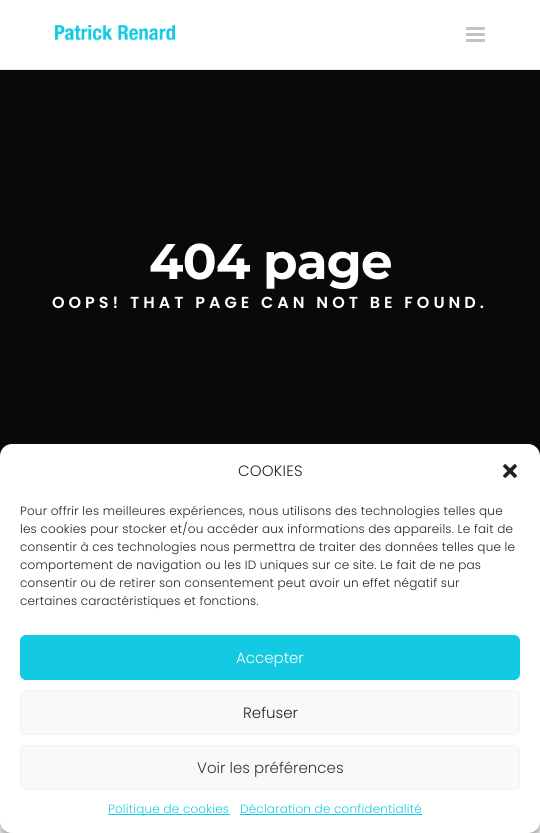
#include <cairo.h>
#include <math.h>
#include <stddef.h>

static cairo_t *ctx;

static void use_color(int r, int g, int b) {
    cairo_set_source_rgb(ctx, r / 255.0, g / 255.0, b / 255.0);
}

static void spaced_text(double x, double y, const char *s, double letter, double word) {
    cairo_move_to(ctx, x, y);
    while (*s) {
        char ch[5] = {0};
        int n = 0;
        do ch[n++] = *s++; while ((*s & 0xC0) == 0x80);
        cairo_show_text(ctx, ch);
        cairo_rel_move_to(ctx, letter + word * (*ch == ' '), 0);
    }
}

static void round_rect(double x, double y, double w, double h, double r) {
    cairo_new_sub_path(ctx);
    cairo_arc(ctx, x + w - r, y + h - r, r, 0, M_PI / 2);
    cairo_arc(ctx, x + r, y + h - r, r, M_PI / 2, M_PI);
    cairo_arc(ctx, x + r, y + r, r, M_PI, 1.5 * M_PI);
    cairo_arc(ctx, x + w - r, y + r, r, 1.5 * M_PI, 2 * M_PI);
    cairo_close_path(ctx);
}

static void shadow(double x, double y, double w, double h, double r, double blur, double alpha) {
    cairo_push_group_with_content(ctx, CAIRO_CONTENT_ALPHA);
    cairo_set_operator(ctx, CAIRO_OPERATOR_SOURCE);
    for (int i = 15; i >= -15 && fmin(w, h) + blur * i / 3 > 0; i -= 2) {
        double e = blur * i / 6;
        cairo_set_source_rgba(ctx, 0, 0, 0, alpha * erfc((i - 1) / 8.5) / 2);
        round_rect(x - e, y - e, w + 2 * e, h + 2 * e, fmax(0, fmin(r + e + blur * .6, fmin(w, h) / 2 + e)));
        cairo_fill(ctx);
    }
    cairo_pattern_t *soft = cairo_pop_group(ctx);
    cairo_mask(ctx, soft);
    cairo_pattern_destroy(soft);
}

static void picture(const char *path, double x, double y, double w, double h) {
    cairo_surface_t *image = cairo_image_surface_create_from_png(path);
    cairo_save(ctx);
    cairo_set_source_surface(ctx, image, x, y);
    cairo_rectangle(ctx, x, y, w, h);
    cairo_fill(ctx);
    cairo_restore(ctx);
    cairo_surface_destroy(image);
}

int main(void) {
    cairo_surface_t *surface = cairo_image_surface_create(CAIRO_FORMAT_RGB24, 540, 833);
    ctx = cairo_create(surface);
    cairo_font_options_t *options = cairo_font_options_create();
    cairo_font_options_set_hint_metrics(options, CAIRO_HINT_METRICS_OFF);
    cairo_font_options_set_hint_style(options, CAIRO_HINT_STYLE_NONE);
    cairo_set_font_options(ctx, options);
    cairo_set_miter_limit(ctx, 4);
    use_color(9, 9, 9);
    cairo_paint(ctx);
    use_color(255, 255, 255);
    cairo_rectangle(ctx, 0, 0, 540, 69);
    cairo_fill(ctx);
    use_color(232, 232, 232);
    cairo_rectangle(ctx, 0, 69, 540, 1);
    cairo_fill(ctx);
    picture("img1.png", 55, 25, 120, 16);
    use_color(194, 194, 194);
    round_rect(466, 27, 19, 3, 1);
    cairo_fill(ctx);
    round_rect(466, 33, 19, 3, 1);
    cairo_fill(ctx);
    round_rect(466, 39, 19, 3, 1);
    cairo_fill(ctx);
    cairo_select_font_face(ctx, "Montserrat", CAIRO_FONT_SLANT_NORMAL, CAIRO_FONT_WEIGHT_BOLD);
    cairo_set_font_size(ctx, 50);
    use_color(255, 255, 255);
    spaced_text(149, 279, "404 page", -0.75, 0);
    cairo_select_font_face(ctx, "Poppins SemiBold", CAIRO_FONT_SLANT_NORMAL, CAIRO_FONT_WEIGHT_NORMAL);
    cairo_set_font_size(ctx, 16);
    spaced_text(52, 308, "OOPS! THAT PAGE CAN NOT BE FOUND.", 4, 0);
    cairo_rectangle(ctx, 0, 821, 540, 12);
    cairo_fill(ctx);
    use_color(0, 0, 0);
    shadow(0, 450, 540, 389, 12, 3, 0.23);
    shadow(0, 454, 540, 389, 12, 10, 0.19);
    use_color(255, 255, 255);
    round_rect(0, 444, 540, 389, 12);
    cairo_fill(ctx);
    cairo_select_font_face(ctx, "Poppins Light", CAIRO_FONT_SLANT_NORMAL, CAIRO_FONT_WEIGHT_NORMAL);
    cairo_set_font_size(ctx, 15);
    use_color(34, 34, 34);
    spaced_text(238, 476, "COOKIES", 0.2, 0);
    picture("img2.png", 503, 464, 14, 14);
    cairo_set_font_size(ctx, 12);
    spaced_text(20, 515, "Pour offrir les meilleures expériences, nous utilisons des technologies telles que", 0.2, 0);
    spaced_text(20, 533, "les cookies pour stocker et/ou accéder aux informations des appareils. Le fait de", 0.2, 0);
    spaced_text(20, 551, "consentir à ces technologies nous permettra de traiter des données telles que le", 0.2, 0);
    spaced_text(20, 569, "comportement de navigation ou les ID uniques sur ce site. Le fait de ne pas", 0.2, 0);
    spaced_text(20, 587, "consentir ou de retirer son consentement peut avoir un effet négatif sur", 0.2, 0);
    spaced_text(20, 605, "certaines caractéristiques et fonctions.", 0.2, 0);
    use_color(20, 202, 226);
    round_rect(20.5, 635.5, 499, 44, 5.5);
    cairo_fill_preserve(ctx);
    cairo_set_line_width(ctx, 1);
    cairo_stroke(ctx);
    cairo_set_font_size(ctx, 15);
    use_color(255, 255, 255);
    cairo_move_to(ctx, 236, 663);
    cairo_show_text(ctx, "Accepter");
    use_color(249, 249, 249);
    round_rect(20.5, 690.5, 499, 44, 5.5);
    cairo_fill_preserve(ctx);
    use_color(242, 242, 242);
    cairo_stroke(ctx);
    use_color(34, 34, 34);
    cairo_move_to(ctx, 243, 718);
    cairo_show_text(ctx, "Refuser");
    use_color(249, 249, 249);
    round_rect(20.5, 745.5, 499, 44, 5.5);
    cairo_fill_preserve(ctx);
    use_color(242, 242, 242);
    cairo_stroke(ctx);
    use_color(51, 51, 51);
    cairo_move_to(ctx, 197, 773);
    cairo_show_text(ctx, "Voir les préférences");
    use_color(20, 202, 226);
    cairo_rectangle(ctx, 108, 814, 122, 1);
    cairo_fill(ctx);
    cairo_set_font_size(ctx, 12);
    spaced_text(108, 813, "Politique de cookies", 0.2, 0);
    spaced_text(240, 813, "Déclaration de confidentialité", 0.2, 0);
    cairo_rectangle(ctx, 240, 814, 182, 1);
    cairo_fill(ctx);
    cairo_surface_write_to_png(surface, "result.png");
    cairo_font_options_destroy(options);
    cairo_destroy(ctx);
    cairo_surface_destroy(surface);
    return 0;
}
